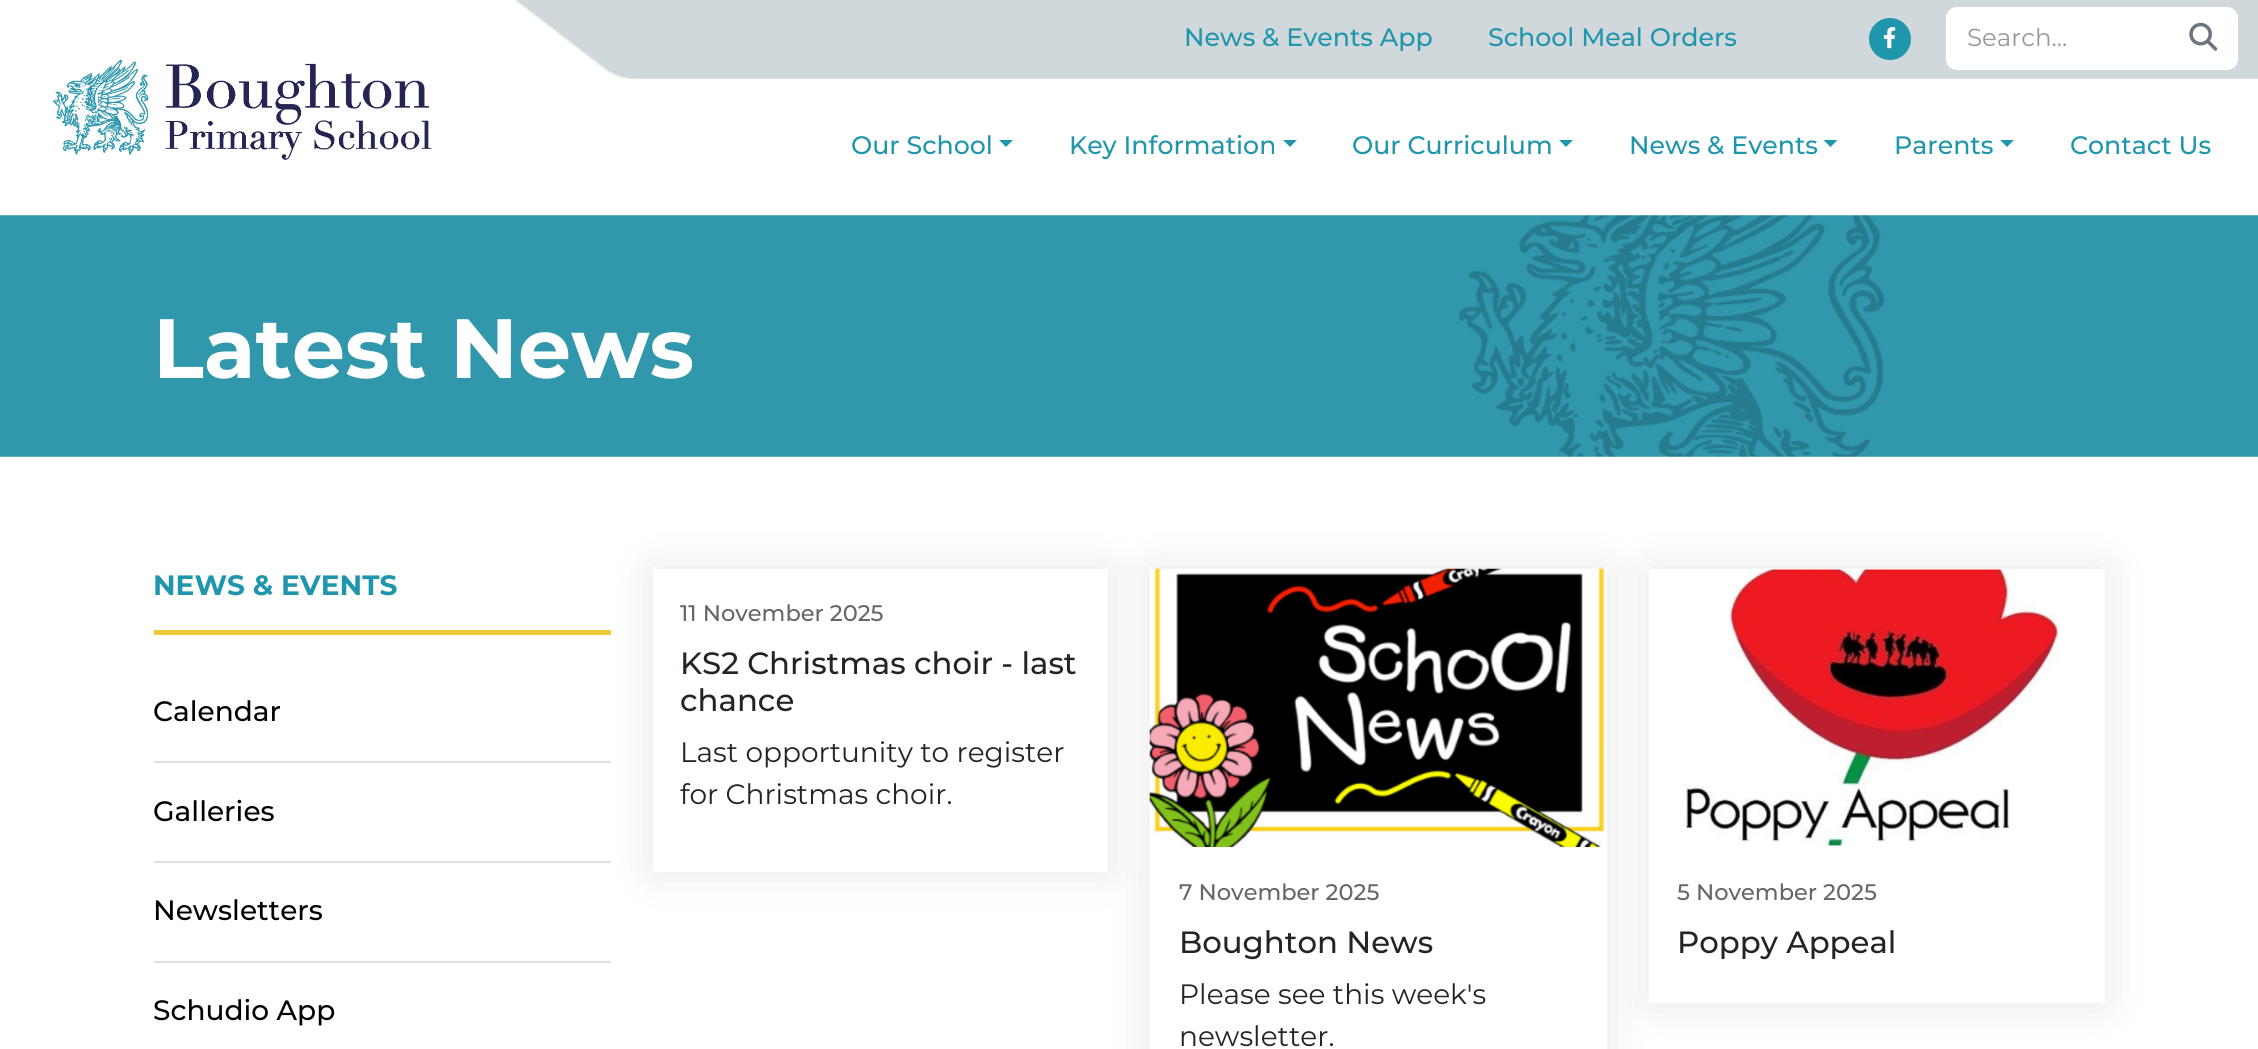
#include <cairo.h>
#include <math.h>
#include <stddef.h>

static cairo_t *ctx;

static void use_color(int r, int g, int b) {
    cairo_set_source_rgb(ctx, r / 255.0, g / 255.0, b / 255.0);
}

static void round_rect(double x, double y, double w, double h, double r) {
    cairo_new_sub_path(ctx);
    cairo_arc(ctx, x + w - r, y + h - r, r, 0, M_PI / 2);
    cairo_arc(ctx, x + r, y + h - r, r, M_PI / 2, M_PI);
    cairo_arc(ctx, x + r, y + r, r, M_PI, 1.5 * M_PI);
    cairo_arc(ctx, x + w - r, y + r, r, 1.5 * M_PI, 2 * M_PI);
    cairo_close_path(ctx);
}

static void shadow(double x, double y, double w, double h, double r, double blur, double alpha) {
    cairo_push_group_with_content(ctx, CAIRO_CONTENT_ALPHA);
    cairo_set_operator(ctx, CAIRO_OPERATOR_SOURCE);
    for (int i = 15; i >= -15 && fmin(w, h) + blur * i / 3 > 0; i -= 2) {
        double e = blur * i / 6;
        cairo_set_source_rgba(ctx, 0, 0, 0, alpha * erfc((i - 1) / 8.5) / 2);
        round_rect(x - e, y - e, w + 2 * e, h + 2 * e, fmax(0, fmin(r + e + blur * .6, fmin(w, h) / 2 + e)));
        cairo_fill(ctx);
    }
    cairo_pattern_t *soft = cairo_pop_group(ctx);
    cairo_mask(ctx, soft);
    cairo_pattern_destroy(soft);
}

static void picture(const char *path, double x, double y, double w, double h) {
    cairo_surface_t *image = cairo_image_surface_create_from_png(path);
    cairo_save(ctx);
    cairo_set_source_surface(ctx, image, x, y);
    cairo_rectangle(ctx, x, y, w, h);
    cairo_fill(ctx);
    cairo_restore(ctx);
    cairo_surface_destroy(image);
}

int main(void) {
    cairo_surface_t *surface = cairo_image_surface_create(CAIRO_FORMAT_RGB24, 2258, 1049);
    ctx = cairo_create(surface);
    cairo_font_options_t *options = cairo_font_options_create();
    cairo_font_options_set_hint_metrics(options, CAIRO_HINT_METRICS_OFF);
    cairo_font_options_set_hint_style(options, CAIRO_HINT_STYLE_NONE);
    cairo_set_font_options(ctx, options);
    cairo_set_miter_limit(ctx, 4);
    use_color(255, 255, 255);
    cairo_paint(ctx);
    picture("img1.png", 53, 59, 379, 101);
    picture("img2.png", 515, 0, 1743, 79);
    cairo_select_font_face(ctx, "Montserrat Medium", CAIRO_FONT_SLANT_NORMAL, CAIRO_FONT_WEIGHT_NORMAL);
    cairo_set_font_size(ctx, 25.25);
    use_color(32, 150, 172);
    cairo_move_to(ctx, 1184, 46);
    cairo_show_text(ctx, "News & Events App");
    cairo_move_to(ctx, 1488, 46);
    cairo_show_text(ctx, "School Meal Orders");
    cairo_new_path(ctx);
    cairo_arc(ctx, 1890, 39, 21, 0, 2 * M_PI);
    cairo_fill(ctx);
    picture("img3.png", 1883, 27, 13, 22);
    use_color(255, 255, 255);
    cairo_new_path(ctx);
    cairo_move_to(ctx, 1957, 7);
    cairo_line_to(ctx, 2170, 7);
    cairo_line_to(ctx, 2170, 70);
    cairo_line_to(ctx, 1957, 70);
    cairo_curve_to(ctx, 1951, 70, 1946, 65, 1946, 59);
    cairo_line_to(ctx, 1946, 18);
    cairo_curve_to(ctx, 1946, 12, 1951, 7, 1957, 7);
    cairo_close_path(ctx);
    cairo_fill(ctx);
    cairo_select_font_face(ctx, "Montserrat", CAIRO_FONT_SLANT_NORMAL, CAIRO_FONT_WEIGHT_NORMAL);
    cairo_set_font_size(ctx, 24.5);
    use_color(153, 153, 153);
    cairo_move_to(ctx, 1967, 46);
    cairo_show_text(ctx, "Search...");
    use_color(255, 255, 255);
    cairo_new_path(ctx);
    cairo_move_to(ctx, 2168, 7);
    cairo_line_to(ctx, 2227, 7);
    cairo_curve_to(ctx, 2233, 7, 2238, 12, 2238, 18);
    cairo_line_to(ctx, 2238, 59);
    cairo_curve_to(ctx, 2238, 65, 2233, 70, 2227, 70);
    cairo_line_to(ctx, 2168, 70);
    cairo_close_path(ctx);
    cairo_fill(ctx);
    picture("img4.png", 2189, 22, 29, 29);
    cairo_select_font_face(ctx, "Montserrat Medium", CAIRO_FONT_SLANT_NORMAL, CAIRO_FONT_WEIGHT_NORMAL);
    cairo_set_font_size(ctx, 25.25);
    use_color(32, 150, 172);
    cairo_move_to(ctx, 851, 154);
    cairo_show_text(ctx, "Our School");
    cairo_new_path(ctx);
    cairo_move_to(ctx, 999, 140);
    cairo_line_to(ctx, 1013, 140);
    cairo_line_to(ctx, 1006, 147);
    cairo_close_path(ctx);
    cairo_fill(ctx);
    cairo_move_to(ctx, 1069, 154);
    cairo_show_text(ctx, "Key Information");
    cairo_new_path(ctx);
    cairo_move_to(ctx, 1283, 140);
    cairo_line_to(ctx, 1297, 140);
    cairo_line_to(ctx, 1290, 147);
    cairo_close_path(ctx);
    cairo_fill(ctx);
    cairo_move_to(ctx, 1352, 154);
    cairo_show_text(ctx, "Our Curriculum");
    cairo_new_path(ctx);
    cairo_move_to(ctx, 1559, 140);
    cairo_line_to(ctx, 1573, 140);
    cairo_line_to(ctx, 1566, 147);
    cairo_close_path(ctx);
    cairo_fill(ctx);
    cairo_move_to(ctx, 1629, 154);
    cairo_show_text(ctx, "News & Events");
    cairo_new_path(ctx);
    cairo_move_to(ctx, 1823.5, 140);
    cairo_line_to(ctx, 1837.5, 140);
    cairo_line_to(ctx, 1830.5, 147);
    cairo_close_path(ctx);
    cairo_fill(ctx);
    cairo_move_to(ctx, 1894, 154);
    cairo_show_text(ctx, "Parents");
    cairo_new_path(ctx);
    cairo_move_to(ctx, 2000, 140);
    cairo_line_to(ctx, 2014, 140);
    cairo_line_to(ctx, 2007, 147);
    cairo_close_path(ctx);
    cairo_fill(ctx);
    cairo_move_to(ctx, 2070, 154);
    cairo_show_text(ctx, "Contact Us");
    picture("img5.png", 0, 215, 2258, 242);
    cairo_select_font_face(ctx, "Montserrat", CAIRO_FONT_SLANT_NORMAL, CAIRO_FONT_WEIGHT_BOLD);
    cairo_set_font_size(ctx, 84);
    use_color(255, 255, 255);
    cairo_move_to(ctx, 153, 378);
    cairo_show_text(ctx, "Latest News");
    use_color(238, 202, 56);
    cairo_rectangle(ctx, 154, 630, 457, 5);
    cairo_fill(ctx);
    cairo_set_font_size(ctx, 28);
    use_color(32, 150, 172);
    cairo_move_to(ctx, 153, 595);
    cairo_show_text(ctx, "NEWS & EVENTS");
    use_color(224, 224, 224);
    cairo_rectangle(ctx, 154, 761, 457, 2);
    cairo_fill(ctx);
    cairo_select_font_face(ctx, "Montserrat Medium", CAIRO_FONT_SLANT_NORMAL, CAIRO_FONT_WEIGHT_NORMAL);
    use_color(1, 1, 1);
    cairo_move_to(ctx, 153, 721);
    cairo_show_text(ctx, "Calendar");
    use_color(224, 224, 224);
    cairo_rectangle(ctx, 154, 861, 457, 2);
    cairo_fill(ctx);
    use_color(1, 1, 1);
    cairo_move_to(ctx, 153, 821);
    cairo_show_text(ctx, "Galleries");
    use_color(224, 224, 224);
    cairo_rectangle(ctx, 154, 961, 457, 2);
    cairo_fill(ctx);
    use_color(1, 1, 1);
    cairo_move_to(ctx, 153, 920);
    cairo_show_text(ctx, "Newsletters");
    cairo_move_to(ctx, 153, 1020);
    cairo_show_text(ctx, "Schudio App");
    use_color(0, 0, 0);
    shadow(653, 569, 455, 303, 0, 21, 0.1);
    use_color(255, 255, 255);
    cairo_rectangle(ctx, 653, 569, 455, 303);
    cairo_fill(ctx);
    cairo_set_font_size(ctx, 22.5);
    use_color(102, 102, 102);
    cairo_move_to(ctx, 680, 621);
    cairo_show_text(ctx, "11 November 2025");
    cairo_set_font_size(ctx, 30.75);
    use_color(33, 37, 41);
    cairo_move_to(ctx, 680, 674);
    cairo_show_text(ctx, "KS2 Christmas choir - last");
    cairo_move_to(ctx, 680, 711);
    cairo_show_text(ctx, "chance");
    cairo_select_font_face(ctx, "Montserrat", CAIRO_FONT_SLANT_NORMAL, CAIRO_FONT_WEIGHT_NORMAL);
    cairo_set_font_size(ctx, 28);
    cairo_move_to(ctx, 680, 762);
    cairo_show_text(ctx, "Last opportunity to register");
    cairo_move_to(ctx, 680, 804);
    cairo_show_text(ctx, "for Christmas choir.");
    use_color(0, 0, 0);
    shadow(1150, 569, 457, 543, 0, 21, 0.1);
    use_color(255, 255, 255);
    cairo_rectangle(ctx, 1150, 569, 457, 480);
    cairo_fill(ctx);
    picture("img6.png", 1149, 568, 456, 279);
    cairo_select_font_face(ctx, "Montserrat Medium", CAIRO_FONT_SLANT_NORMAL, CAIRO_FONT_WEIGHT_NORMAL);
    cairo_set_font_size(ctx, 22.5);
    use_color(102, 102, 102);
    cairo_move_to(ctx, 1179, 900);
    cairo_show_text(ctx, "7 November 2025");
    cairo_set_font_size(ctx, 30.75);
    use_color(33, 37, 41);
    cairo_move_to(ctx, 1179, 953);
    cairo_show_text(ctx, "Boughton News");
    cairo_select_font_face(ctx, "Montserrat", CAIRO_FONT_SLANT_NORMAL, CAIRO_FONT_WEIGHT_NORMAL);
    cairo_set_font_size(ctx, 28);
    cairo_move_to(ctx, 1179, 1004);
    cairo_show_text(ctx, "Please see this week's");
    cairo_move_to(ctx, 1179, 1046);
    cairo_show_text(ctx, "newsletter.");
    use_color(0, 0, 0);
    shadow(1649, 569, 456, 434, 0, 21, 0.1);
    use_color(255, 255, 255);
    cairo_rectangle(ctx, 1649, 569, 456, 434);
    cairo_fill(ctx);
    picture("img7.png", 1681, 569, 379, 277);
    cairo_select_font_face(ctx, "Montserrat Medium", CAIRO_FONT_SLANT_NORMAL, CAIRO_FONT_WEIGHT_NORMAL);
    cairo_set_font_size(ctx, 22.5);
    use_color(102, 102, 102);
    cairo_move_to(ctx, 1677, 900);
    cairo_show_text(ctx, "5 November 2025");
    cairo_set_font_size(ctx, 30.75);
    use_color(33, 37, 41);
    cairo_move_to(ctx, 1677, 953);
    cairo_show_text(ctx, "Poppy Appeal");
    cairo_surface_write_to_png(surface, "result.png");
    cairo_font_options_destroy(options);
    cairo_destroy(ctx);
    cairo_surface_destroy(surface);
    return 0;
}
